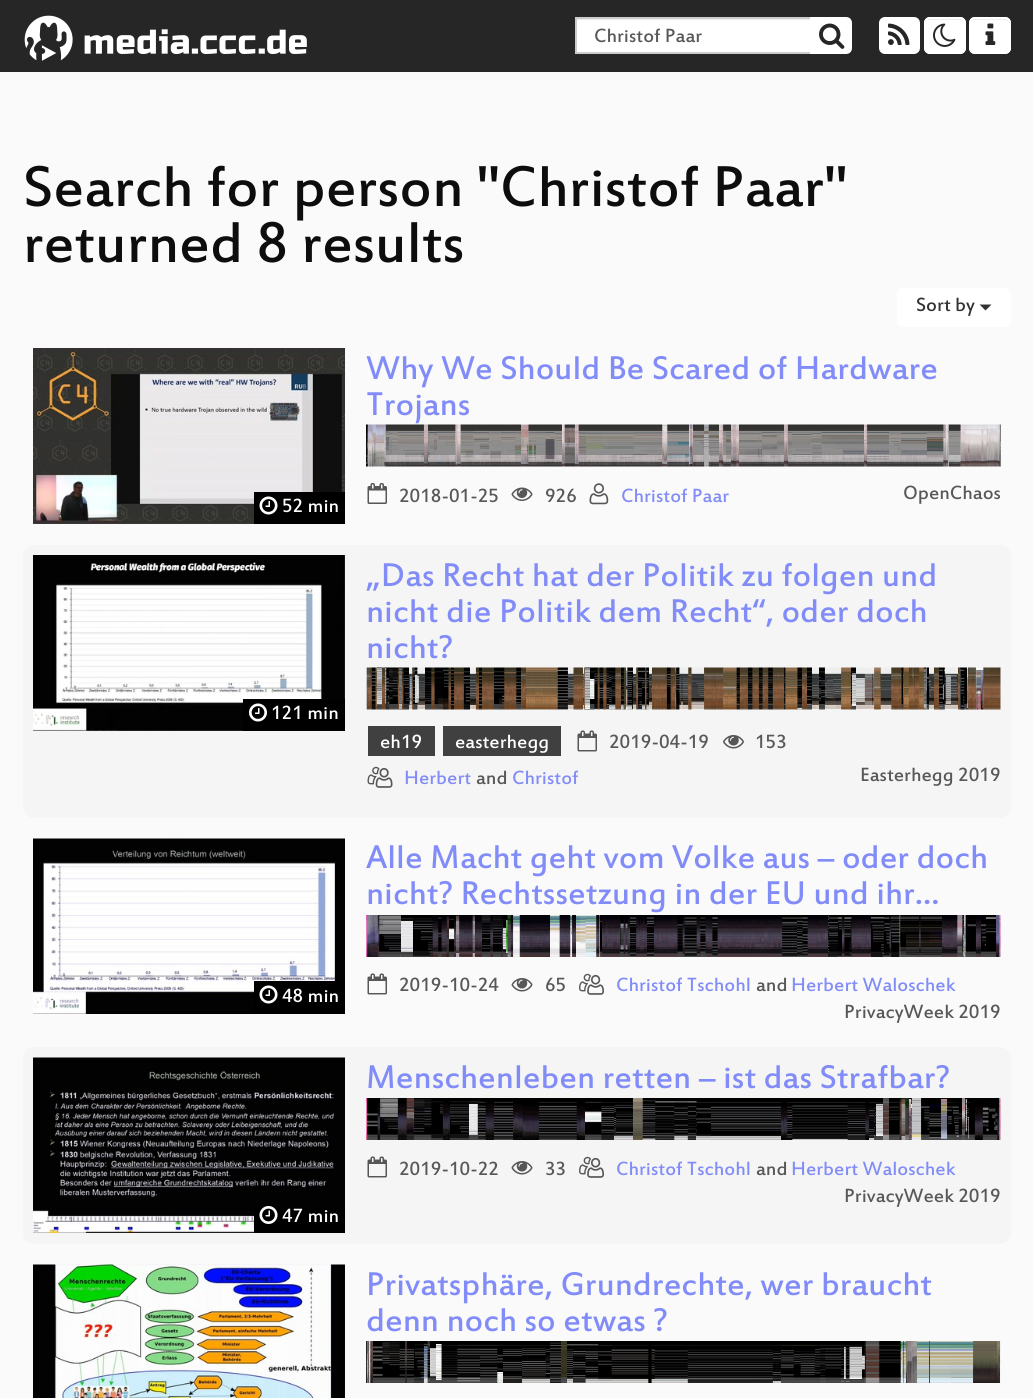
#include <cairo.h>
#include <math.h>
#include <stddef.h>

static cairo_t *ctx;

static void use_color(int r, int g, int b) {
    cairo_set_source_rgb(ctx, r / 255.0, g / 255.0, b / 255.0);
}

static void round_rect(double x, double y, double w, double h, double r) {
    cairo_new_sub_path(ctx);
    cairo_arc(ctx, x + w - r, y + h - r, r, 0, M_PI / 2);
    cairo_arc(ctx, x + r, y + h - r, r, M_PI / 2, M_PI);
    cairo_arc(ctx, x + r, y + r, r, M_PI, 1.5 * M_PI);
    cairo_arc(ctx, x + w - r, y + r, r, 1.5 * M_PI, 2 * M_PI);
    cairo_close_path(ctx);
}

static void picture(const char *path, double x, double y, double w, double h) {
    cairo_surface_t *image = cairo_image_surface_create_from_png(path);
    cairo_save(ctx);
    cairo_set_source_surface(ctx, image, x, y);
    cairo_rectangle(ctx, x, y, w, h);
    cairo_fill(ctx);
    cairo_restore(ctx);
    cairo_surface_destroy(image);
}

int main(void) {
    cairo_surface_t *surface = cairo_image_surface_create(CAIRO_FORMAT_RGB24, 1033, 1398);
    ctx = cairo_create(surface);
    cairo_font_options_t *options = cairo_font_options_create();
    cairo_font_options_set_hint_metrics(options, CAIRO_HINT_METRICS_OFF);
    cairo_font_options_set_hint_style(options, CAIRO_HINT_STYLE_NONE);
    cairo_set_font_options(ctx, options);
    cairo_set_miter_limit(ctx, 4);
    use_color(250, 250, 250);
    cairo_paint(ctx);
    use_color(38, 38, 38);
    cairo_rectangle(ctx, 0, 0, 1033, 72);
    cairo_fill(ctx);
    picture("img1.png", 24, 15, 283, 46);
    use_color(255, 255, 255);
    cairo_rectangle(ctx, 577, 20, 233, 32);
    cairo_fill(ctx);
    use_color(236, 236, 236);
    cairo_rectangle(ctx, 576, 19, 234, 1);
    cairo_fill(ctx);
    cairo_rectangle(ctx, 576, 18, 235, 35);
    use_color(204, 204, 204);
    cairo_stroke(ctx);
    cairo_select_font_face(ctx, "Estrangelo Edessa", CAIRO_FONT_SLANT_NORMAL, CAIRO_FONT_WEIGHT_NORMAL);
    cairo_set_font_size(ctx, 21);
    use_color(88, 88, 88);
    cairo_move_to(ctx, 594, 42);
    cairo_show_text(ctx, "Christof Paar");
    use_color(255, 255, 255);
    cairo_new_path(ctx);
    cairo_move_to(ctx, 811, 18);
    cairo_line_to(ctx, 846, 18);
    cairo_curve_to(ctx, 849, 18, 851, 20, 851, 23);
    cairo_line_to(ctx, 851, 48);
    cairo_curve_to(ctx, 851, 51, 849, 53, 846, 53);
    cairo_line_to(ctx, 811, 53);
    cairo_close_path(ctx);
    cairo_fill_preserve(ctx);
    cairo_stroke(ctx);
    picture("img2.png", 819, 23, 26, 26);
    round_rect(880, 18, 39, 35, 5);
    cairo_fill_preserve(ctx);
    cairo_stroke(ctx);
    picture("img3.png", 888, 23, 22, 22);
    round_rect(924, 17, 42, 37, 6);
    cairo_fill(ctx);
    use_color(236, 236, 236);
    cairo_set_fill_rule(ctx, CAIRO_FILL_RULE_EVEN_ODD);
    cairo_new_path(ctx);
    cairo_move_to(ctx, 930, 20);
    cairo_line_to(ctx, 955, 20);
    cairo_curve_to(ctx, 964.5, 20, 964.5, 21.5, 964, 28);
    cairo_line_to(ctx, 964, 32);
    cairo_curve_to(ctx, 964, 42.5, 965, 48, 964, 51);
    cairo_curve_to(ctx, 964.5, 50, 965, 49, 965, 48);
    cairo_line_to(ctx, 965, 23);
    cairo_curve_to(ctx, 965, 20, 963, 18, 960, 18);
    cairo_line_to(ctx, 931, 18);
    cairo_curve_to(ctx, 928, 18, 926, 20, 926, 23);
    cairo_line_to(ctx, 926, 23.5);
    cairo_curve_to(ctx, 926, 21.5, 927, 20, 930, 20);
    cairo_close_path(ctx);
    cairo_move_to(ctx, 926, 48.5);
    cairo_line_to(ctx, 926, 45);
    cairo_close_path(ctx);
    cairo_fill(ctx);
    round_rect(925, 18, 40, 35, 5);
    use_color(255, 255, 255);
    cairo_stroke(ctx);
    picture("img4.png", 933, 23, 23, 24);
    round_rect(969, 17, 42, 37, 6);
    cairo_fill(ctx);
    use_color(236, 236, 236);
    cairo_set_fill_rule(ctx, CAIRO_FILL_RULE_WINDING);
    cairo_new_path(ctx);
    cairo_move_to(ctx, 975, 20);
    cairo_line_to(ctx, 1000, 20);
    cairo_curve_to(ctx, 1008.5, 20, 1010, 21, 1010, 26.5);
    cairo_line_to(ctx, 1010, 23);
    cairo_curve_to(ctx, 1010, 20, 1008, 18, 1005, 18);
    cairo_line_to(ctx, 976, 18);
    cairo_curve_to(ctx, 973.5, 18, 971.5, 19.5, 971, 22);
    cairo_curve_to(ctx, 972, 21, 973, 20, 975, 20);
    cairo_close_path(ctx);
    cairo_fill(ctx);
    round_rect(970, 18, 40, 35, 5);
    use_color(255, 255, 255);
    cairo_stroke(ctx);
    picture("img5.png", 985, 23, 11, 22);
    cairo_set_font_size(ctx, 63);
    use_color(13, 13, 13);
    cairo_move_to(ctx, 23, 206);
    cairo_show_text(ctx, "Search for person \"Christof Paar\"");
    cairo_move_to(ctx, 23, 262);
    cairo_show_text(ctx, "returned 8 results");
    use_color(255, 255, 255);
    round_rect(897, 288, 114, 39, 6);
    cairo_fill(ctx);
    cairo_set_font_size(ctx, 21);
    use_color(51, 51, 51);
    cairo_move_to(ctx, 916, 311);
    cairo_show_text(ctx, "Sort by");
    cairo_new_path(ctx);
    cairo_move_to(ctx, 979.5, 304.5);
    cairo_line_to(ctx, 991.5, 304.5);
    cairo_line_to(ctx, 985.5, 310.5);
    cairo_close_path(ctx);
    cairo_fill(ctx);
    cairo_set_font_size(ctx, 36);
    use_color(129, 140, 248);
    cairo_move_to(ctx, 366, 379);
    cairo_show_text(ctx, "Why We Should Be Scared of Hardware");
    cairo_move_to(ctx, 366, 415);
    cairo_show_text(ctx, "Trojans");
    picture("img6.png", 366, 424, 635, 43);
    picture("img7.png", 367, 483, 20, 21);
    cairo_set_font_size(ctx, 21);
    use_color(88, 88, 88);
    cairo_move_to(ctx, 399, 502);
    cairo_show_text(ctx, "2018-01-25");
    picture("img8.png", 511, 487, 22, 14);
    cairo_move_to(ctx, 545, 502);
    cairo_show_text(ctx, "926");
    picture("img9.png", 589, 483, 20, 22);
    use_color(129, 140, 248);
    cairo_move_to(ctx, 621, 502);
    cairo_show_text(ctx, "Christof Paar");
    use_color(88, 88, 88);
    cairo_move_to(ctx, 903, 499);
    cairo_show_text(ctx, "OpenChaos");
    use_color(64, 64, 64);
    cairo_rectangle(ctx, 33, 523, 221, 1);
    cairo_fill(ctx);
    picture("img10.png", 33, 348, 312, 176);
    use_color(0, 0, 0);
    cairo_rectangle(ctx, 254, 492, 91, 32);
    cairo_fill(ctx);
    picture("img11.png", 259, 496, 19, 19);
    use_color(255, 255, 255);
    cairo_move_to(ctx, 282, 512);
    cairo_show_text(ctx, "52 min");
    use_color(245, 245, 245);
    round_rect(23, 545, 988, 273, 11);
    cairo_fill(ctx);
    use_color(64, 64, 64);
    cairo_rectangle(ctx, 33, 730, 210, 1);
    cairo_fill(ctx);
    picture("img12.png", 33, 555, 312, 176);
    use_color(0, 0, 0);
    cairo_rectangle(ctx, 243, 699, 102, 32);
    cairo_fill(ctx);
    picture("img13.png", 249, 703, 18, 19);
    use_color(255, 255, 255);
    cairo_move_to(ctx, 271, 719);
    cairo_show_text(ctx, "121 min");
    cairo_set_font_size(ctx, 36);
    use_color(129, 140, 248);
    cairo_move_to(ctx, 366, 586);
    cairo_show_text(ctx, "„Das Recht hat der Politik zu folgen und");
    cairo_move_to(ctx, 366, 622);
    cairo_show_text(ctx, "nicht die Politik dem Recht“, oder doch");
    cairo_move_to(ctx, 366, 658);
    cairo_show_text(ctx, "nicht?");
    picture("img14.png", 366, 667, 635, 43);
    use_color(64, 64, 64);
    cairo_rectangle(ctx, 368, 726, 67, 30);
    cairo_fill(ctx);
    cairo_set_font_size(ctx, 21);
    use_color(255, 255, 255);
    cairo_move_to(ctx, 380, 748);
    cairo_show_text(ctx, "eh19");
    use_color(64, 64, 64);
    cairo_rectangle(ctx, 443, 726, 118, 30);
    cairo_fill(ctx);
    use_color(255, 255, 255);
    cairo_move_to(ctx, 455, 748);
    cairo_show_text(ctx, "easterhegg");
    picture("img15.png", 577, 730, 20, 22);
    use_color(88, 88, 88);
    cairo_move_to(ctx, 609, 748);
    cairo_show_text(ctx, "2019-04-19");
    picture("img16.png", 723, 735, 21, 14);
    cairo_move_to(ctx, 755, 748);
    cairo_show_text(ctx, "153");
    picture("img17.png", 367, 766, 26, 22);
    use_color(129, 140, 248);
    cairo_move_to(ctx, 404, 784);
    cairo_show_text(ctx, "Herbert");
    use_color(88, 88, 88);
    cairo_move_to(ctx, 476, 784);
    cairo_show_text(ctx, "and");
    use_color(129, 140, 248);
    cairo_move_to(ctx, 512, 784);
    cairo_show_text(ctx, "Christof");
    use_color(88, 88, 88);
    cairo_move_to(ctx, 860, 781);
    cairo_show_text(ctx, "Easterhegg 2019");
    picture("img18.png", 33, 838, 312, 176);
    use_color(0, 0, 0);
    cairo_rectangle(ctx, 254, 981, 91, 33);
    cairo_fill(ctx);
    picture("img11.png", 259, 985, 19, 19);
    use_color(255, 255, 255);
    cairo_move_to(ctx, 282, 1002);
    cairo_show_text(ctx, "48 min");
    cairo_set_font_size(ctx, 36);
    use_color(129, 140, 248);
    cairo_move_to(ctx, 366, 868);
    cairo_show_text(ctx, "Alle Macht geht vom Volke aus – oder doch");
    cairo_move_to(ctx, 366, 904);
    cairo_show_text(ctx, "nicht? Rechtssetzung in der EU und ihr…");
    picture("img19.png", 366, 915, 635, 42);
    picture("img20.png", 367, 973, 20, 22);
    cairo_set_font_size(ctx, 21);
    use_color(88, 88, 88);
    cairo_move_to(ctx, 399, 991);
    cairo_show_text(ctx, "2019-10-24");
    picture("img21.png", 511, 978, 22, 14);
    cairo_move_to(ctx, 545, 991);
    cairo_show_text(ctx, "65");
    picture("img22.png", 579, 973, 25, 22);
    use_color(129, 140, 248);
    cairo_move_to(ctx, 616, 991);
    cairo_show_text(ctx, "Christof Tschohl");
    use_color(88, 88, 88);
    cairo_move_to(ctx, 756, 991);
    cairo_show_text(ctx, "and");
    use_color(129, 140, 248);
    cairo_move_to(ctx, 791, 991);
    cairo_show_text(ctx, "Herbert Waloschek");
    use_color(88, 88, 88);
    cairo_move_to(ctx, 844, 1018);
    cairo_show_text(ctx, "PrivacyWeek 2019");
    use_color(245, 245, 245);
    round_rect(23, 1047, 988, 197, 11);
    cairo_fill(ctx);
    cairo_set_font_size(ctx, 36);
    use_color(129, 140, 248);
    cairo_move_to(ctx, 366, 1088);
    cairo_show_text(ctx, "Menschenleben retten – ist das Strafbar?");
    picture("img23.png", 366, 1098, 635, 42);
    picture("img15.png", 367, 1156, 20, 22);
    cairo_set_font_size(ctx, 21);
    use_color(88, 88, 88);
    cairo_move_to(ctx, 399, 1175);
    cairo_show_text(ctx, "2019-10-22");
    picture("img24.png", 511, 1161, 22, 14);
    cairo_move_to(ctx, 545, 1175);
    cairo_show_text(ctx, "33");
    picture("img25.png", 579, 1156, 25, 22);
    use_color(129, 140, 248);
    cairo_move_to(ctx, 616, 1175);
    cairo_show_text(ctx, "Christof Tschohl");
    use_color(88, 88, 88);
    cairo_move_to(ctx, 756, 1175);
    cairo_show_text(ctx, "and");
    use_color(129, 140, 248);
    cairo_move_to(ctx, 791, 1175);
    cairo_show_text(ctx, "Herbert Waloschek");
    use_color(88, 88, 88);
    cairo_move_to(ctx, 844, 1202);
    cairo_show_text(ctx, "PrivacyWeek 2019");
    picture("img26.png", 33, 1057, 312, 176);
    use_color(0, 0, 0);
    cairo_rectangle(ctx, 254, 1207, 91, 26);
    cairo_fill(ctx);
    picture("img27.png", 259, 1206, 19, 18);
    use_color(255, 255, 255);
    cairo_move_to(ctx, 282, 1222);
    cairo_show_text(ctx, "47 min");
    picture("img28.png", 33, 1264, 312, 134);
    cairo_set_font_size(ctx, 36);
    use_color(129, 140, 248);
    cairo_move_to(ctx, 366, 1295);
    cairo_show_text(ctx, "Privatsphäre, Grundrechte, wer braucht");
    cairo_move_to(ctx, 366, 1331);
    cairo_show_text(ctx, "denn noch so etwas ?");
    picture("img29.png", 366, 1341, 635, 42);
    cairo_surface_write_to_png(surface, "result.png");
    cairo_font_options_destroy(options);
    cairo_destroy(ctx);
    cairo_surface_destroy(surface);
    return 0;
}
